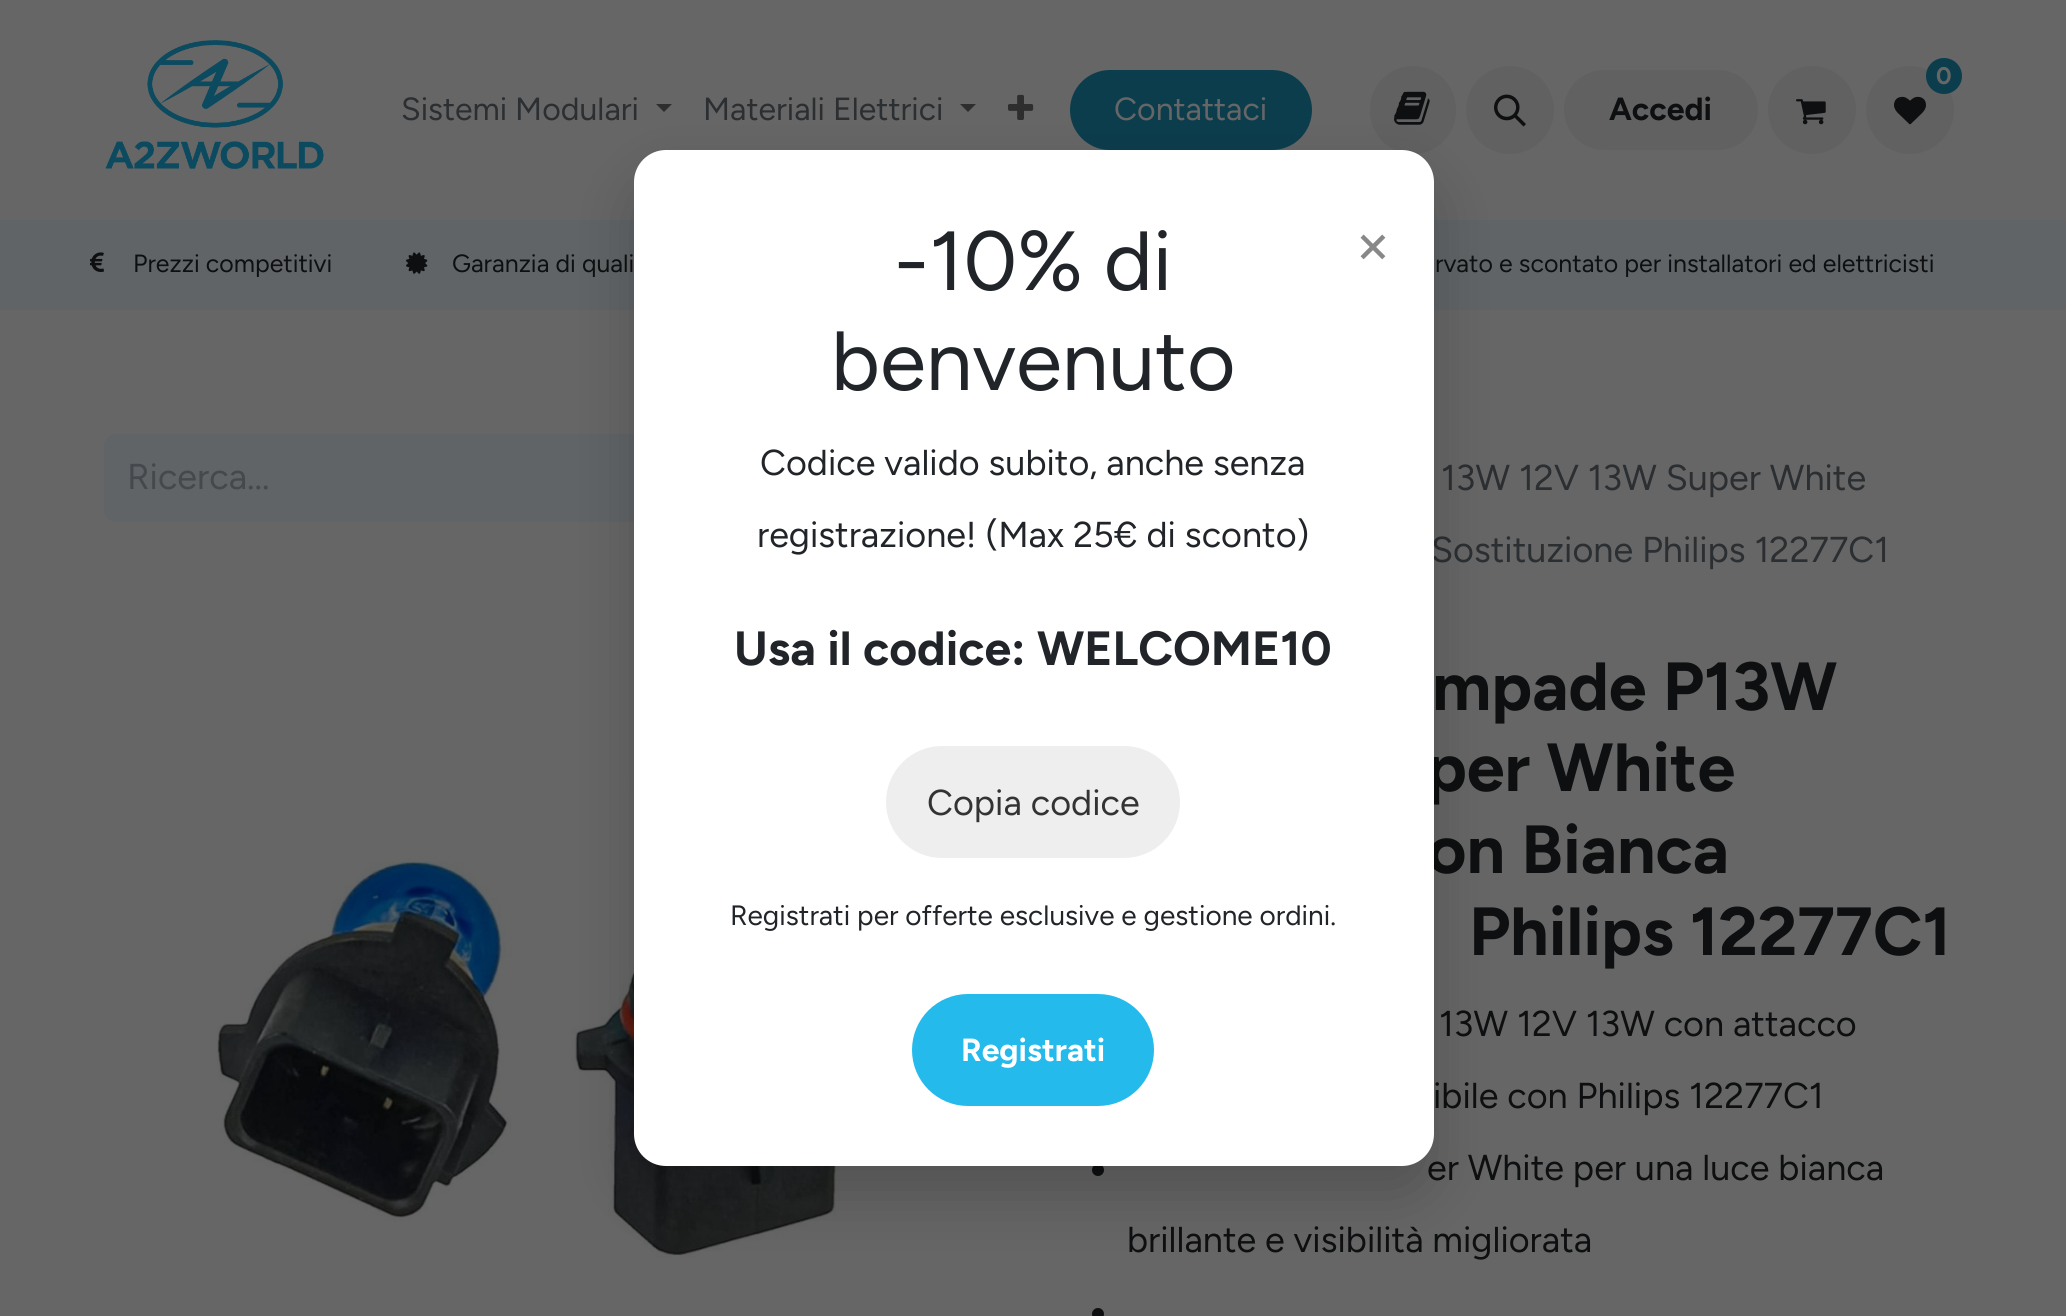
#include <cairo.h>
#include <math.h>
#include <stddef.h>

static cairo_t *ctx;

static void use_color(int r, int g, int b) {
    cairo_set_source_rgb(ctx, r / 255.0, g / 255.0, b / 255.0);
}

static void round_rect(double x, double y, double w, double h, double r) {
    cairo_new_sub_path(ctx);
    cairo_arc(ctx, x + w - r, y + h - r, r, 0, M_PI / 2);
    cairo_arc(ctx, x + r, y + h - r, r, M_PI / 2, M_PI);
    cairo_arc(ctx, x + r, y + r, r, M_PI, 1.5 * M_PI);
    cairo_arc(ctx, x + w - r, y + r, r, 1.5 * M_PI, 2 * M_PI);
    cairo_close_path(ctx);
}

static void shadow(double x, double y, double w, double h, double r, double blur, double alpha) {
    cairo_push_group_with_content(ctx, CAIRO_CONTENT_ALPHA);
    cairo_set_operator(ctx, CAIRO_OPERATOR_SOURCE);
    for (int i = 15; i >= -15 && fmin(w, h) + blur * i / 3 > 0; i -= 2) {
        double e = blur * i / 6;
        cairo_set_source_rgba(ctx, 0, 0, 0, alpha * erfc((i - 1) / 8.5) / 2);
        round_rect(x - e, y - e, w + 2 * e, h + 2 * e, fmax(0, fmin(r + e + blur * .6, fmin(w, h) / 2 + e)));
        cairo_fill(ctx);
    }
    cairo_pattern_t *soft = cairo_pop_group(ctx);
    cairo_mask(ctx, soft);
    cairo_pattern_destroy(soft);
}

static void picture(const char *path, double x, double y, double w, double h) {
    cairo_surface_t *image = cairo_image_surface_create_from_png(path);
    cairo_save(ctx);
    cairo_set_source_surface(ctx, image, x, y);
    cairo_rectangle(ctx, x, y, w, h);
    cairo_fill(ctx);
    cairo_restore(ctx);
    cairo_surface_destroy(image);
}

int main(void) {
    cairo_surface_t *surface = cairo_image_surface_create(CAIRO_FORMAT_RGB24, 2066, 1316);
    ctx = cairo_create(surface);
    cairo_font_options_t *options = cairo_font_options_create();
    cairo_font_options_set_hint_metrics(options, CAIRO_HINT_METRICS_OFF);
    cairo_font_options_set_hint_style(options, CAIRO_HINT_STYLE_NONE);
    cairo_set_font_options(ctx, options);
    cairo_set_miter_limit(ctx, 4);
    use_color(102, 102, 102);
    cairo_paint(ctx);
    picture("img1.png", 105, 40, 219, 129);
    cairo_select_font_face(ctx, "Figtree", CAIRO_FONT_SLANT_NORMAL, CAIRO_FONT_WEIGHT_NORMAL);
    cairo_set_font_size(ctx, 32);
    use_color(43, 47, 50);
    cairo_move_to(ctx, 401, 120);
    cairo_show_text(ctx, "Sistemi Modulari");
    use_color(46, 46, 46);
    cairo_new_path(ctx);
    cairo_move_to(ctx, 656, 104);
    cairo_line_to(ctx, 672, 104);
    cairo_line_to(ctx, 664, 112);
    cairo_close_path(ctx);
    cairo_fill(ctx);
    use_color(43, 47, 50);
    cairo_move_to(ctx, 703, 120);
    cairo_show_text(ctx, "Materiali Elettrici");
    use_color(46, 46, 46);
    cairo_new_path(ctx);
    cairo_move_to(ctx, 960, 104);
    cairo_line_to(ctx, 976, 104);
    cairo_line_to(ctx, 968, 112);
    cairo_close_path(ctx);
    cairo_fill(ctx);
    picture("img2.png", 1008, 94, 26, 26);
    use_color(97, 97, 97);
    round_rect(1370, 66, 86, 88, 43);
    cairo_fill(ctx);
    picture("img3.png", 1394, 91, 36, 34);
    cairo_arc(ctx, 1510, 110, 44, 0, 2 * M_PI);
    cairo_fill(ctx);
    picture("img4.png", 1494, 94, 32, 33);
    cairo_arc(ctx, 1812, 110, 44, 0, 2 * M_PI);
    cairo_fill(ctx);
    picture("img5.png", 1796, 99, 30, 26);
    cairo_arc(ctx, 1910, 110, 44, 0, 2 * M_PI);
    cairo_fill(ctx);
    use_color(12, 61, 77);
    cairo_arc(ctx, 1944, 76, 18, 0, 2 * M_PI);
    cairo_fill(ctx);
    cairo_select_font_face(ctx, "Figtree", CAIRO_FONT_SLANT_NORMAL, CAIRO_FONT_WEIGHT_BOLD);
    cairo_set_font_size(ctx, 24);
    use_color(102, 102, 102);
    cairo_move_to(ctx, 1936, 84);
    cairo_show_text(ctx, "0");
    picture("img6.png", 1894, 96, 32, 29);
    use_color(12, 61, 77);
    round_rect(1071, 71, 240, 78, 39);
    cairo_fill_preserve(ctx);
    cairo_stroke(ctx);
    cairo_select_font_face(ctx, "Figtree", CAIRO_FONT_SLANT_NORMAL, CAIRO_FONT_WEIGHT_NORMAL);
    cairo_set_font_size(ctx, 32);
    use_color(102, 102, 102);
    cairo_move_to(ctx, 1114, 120);
    cairo_show_text(ctx, "Contattaci");
    use_color(97, 97, 97);
    round_rect(1564, 70, 194, 80, 40);
    cairo_fill(ctx);
    cairo_select_font_face(ctx, "Figtree", CAIRO_FONT_SLANT_NORMAL, CAIRO_FONT_WEIGHT_BOLD);
    use_color(13, 15, 16);
    cairo_move_to(ctx, 1609, 120);
    cairo_show_text(ctx, "Accedi");
    use_color(96, 100, 102);
    cairo_rectangle(ctx, 0, 220, 2066, 90);
    cairo_fill(ctx);
    picture("img7.png", 90, 252, 14, 20);
    cairo_select_font_face(ctx, "Figtree", CAIRO_FONT_SLANT_NORMAL, CAIRO_FONT_WEIGHT_NORMAL);
    cairo_set_font_size(ctx, 24.9);
    use_color(13, 15, 16);
    cairo_move_to(ctx, 133, 272);
    cairo_show_text(ctx, "Prezzi competitivi");
    picture("img8.png", 406, 252, 22, 22);
    cairo_move_to(ctx, 452, 272);
    cairo_show_text(ctx, "Garanzia di quali");
    cairo_move_to(ctx, 1435, 272);
    cairo_show_text(ctx, "rvato e scontato per installatori ed elettricisti");
    use_color(96, 100, 102);
    cairo_new_path(ctx);
    cairo_move_to(ctx, 116, 434);
    cairo_line_to(ctx, 878, 434);
    cairo_line_to(ctx, 878, 522);
    cairo_line_to(ctx, 116, 522);
    cairo_curve_to(ctx, 109.5, 522, 104, 516.5, 104, 510);
    cairo_line_to(ctx, 104, 446);
    cairo_curve_to(ctx, 104, 439.5, 109.5, 434, 116, 434);
    cairo_close_path(ctx);
    cairo_fill(ctx);
    cairo_set_font_size(ctx, 36);
    use_color(69, 72, 76);
    cairo_move_to(ctx, 127, 489);
    cairo_show_text(ctx, "Ricerca...");
    use_color(43, 47, 50);
    cairo_move_to(ctx, 1441, 490);
    cairo_show_text(ctx, "13W 12V 13W Super White");
    cairo_move_to(ctx, 1431, 562);
    cairo_show_text(ctx, "Sostituzione Philips 12277C1");
    picture("img9.png", 216, 681, 640, 576);
    cairo_select_font_face(ctx, "Figtree", CAIRO_FONT_SLANT_NORMAL, CAIRO_FONT_WEIGHT_BOLD);
    cairo_set_font_size(ctx, 68);
    use_color(13, 15, 16);
    cairo_move_to(ctx, 1432, 710);
    cairo_show_text(ctx, "mpade P13W");
    cairo_move_to(ctx, 1426, 791);
    cairo_show_text(ctx, "per White");
    cairo_move_to(ctx, 1427, 873);
    cairo_show_text(ctx, "on Bianca");
    cairo_move_to(ctx, 1469, 955);
    cairo_show_text(ctx, "Philips 12277C1");
    cairo_select_font_face(ctx, "Figtree", CAIRO_FONT_SLANT_NORMAL, CAIRO_FONT_WEIGHT_NORMAL);
    cairo_set_font_size(ctx, 36);
    cairo_move_to(ctx, 1439, 1036);
    cairo_show_text(ctx, "13W 12V 13W con attacco");
    cairo_move_to(ctx, 1433, 1108);
    cairo_show_text(ctx, "ibile con Philips 12277C1");
    cairo_new_path(ctx);
    cairo_arc(ctx, 1098, 1170, 6, 0, 2 * M_PI);
    cairo_fill(ctx);
    cairo_move_to(ctx, 1427, 1180);
    cairo_show_text(ctx, "er White per una luce bianca");
    cairo_move_to(ctx, 1127, 1252);
    cairo_show_text(ctx, "brillante e visibilità migliorata");
    cairo_new_path(ctx);
    cairo_arc(ctx, 1098, 1314, 6, 0, 2 * M_PI);
    cairo_fill(ctx);
    use_color(0, 0, 0);
    shadow(634, 180, 800, 1016, 32, 30, 0.2);
    use_color(255, 255, 255);
    round_rect(634, 150, 800, 1016, 32);
    cairo_fill(ctx);
    cairo_set_font_size(ctx, 83.75);
    use_color(33, 37, 41);
    cairo_move_to(ctx, 894, 290);
    cairo_show_text(ctx, "-10% di");
    cairo_move_to(ctx, 831, 390);
    cairo_show_text(ctx, "benvenuto");
    cairo_set_font_size(ctx, 64);
    use_color(136, 136, 136);
    cairo_move_to(ctx, 1353, 266);
    cairo_show_text(ctx, "×");
    cairo_set_font_size(ctx, 36);
    use_color(33, 37, 41);
    cairo_move_to(ctx, 760, 475);
    cairo_show_text(ctx, "Codice valido subito, anche senza");
    cairo_move_to(ctx, 757, 547);
    cairo_show_text(ctx, "registrazione! (Max 25€ di sconto)");
    cairo_select_font_face(ctx, "Figtree", CAIRO_FONT_SLANT_NORMAL, CAIRO_FONT_WEIGHT_BOLD);
    cairo_set_font_size(ctx, 48);
    cairo_move_to(ctx, 734, 665);
    cairo_show_text(ctx, "Usa il codice: WELCOME10");
    use_color(238, 238, 238);
    round_rect(886, 746, 294, 112, 56);
    cairo_fill(ctx);
    cairo_select_font_face(ctx, "Figtree", CAIRO_FONT_SLANT_NORMAL, CAIRO_FONT_WEIGHT_NORMAL);
    cairo_set_font_size(ctx, 36);
    use_color(51, 51, 51);
    cairo_move_to(ctx, 927, 815);
    cairo_show_text(ctx, "Copia codice");
    cairo_set_font_size(ctx, 28);
    use_color(33, 37, 41);
    cairo_move_to(ctx, 730, 925);
    cairo_show_text(ctx, "Registrati per offerte esclusive e gestione ordini.");
    use_color(36, 186, 236);
    round_rect(912, 994, 242, 112, 56);
    cairo_fill(ctx);
    cairo_select_font_face(ctx, "Figtree", CAIRO_FONT_SLANT_NORMAL, CAIRO_FONT_WEIGHT_BOLD);
    cairo_set_font_size(ctx, 32);
    use_color(255, 255, 255);
    cairo_move_to(ctx, 961, 1061);
    cairo_show_text(ctx, "Registrati");
    cairo_surface_write_to_png(surface, "result.png");
    cairo_font_options_destroy(options);
    cairo_destroy(ctx);
    cairo_surface_destroy(surface);
    return 0;
}
